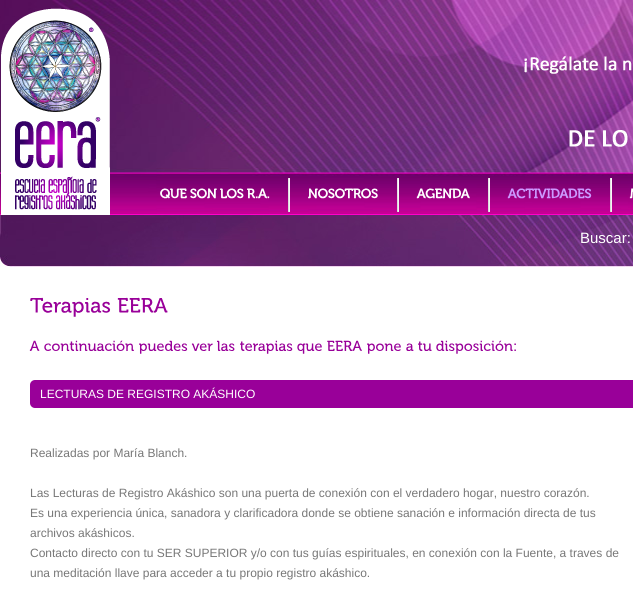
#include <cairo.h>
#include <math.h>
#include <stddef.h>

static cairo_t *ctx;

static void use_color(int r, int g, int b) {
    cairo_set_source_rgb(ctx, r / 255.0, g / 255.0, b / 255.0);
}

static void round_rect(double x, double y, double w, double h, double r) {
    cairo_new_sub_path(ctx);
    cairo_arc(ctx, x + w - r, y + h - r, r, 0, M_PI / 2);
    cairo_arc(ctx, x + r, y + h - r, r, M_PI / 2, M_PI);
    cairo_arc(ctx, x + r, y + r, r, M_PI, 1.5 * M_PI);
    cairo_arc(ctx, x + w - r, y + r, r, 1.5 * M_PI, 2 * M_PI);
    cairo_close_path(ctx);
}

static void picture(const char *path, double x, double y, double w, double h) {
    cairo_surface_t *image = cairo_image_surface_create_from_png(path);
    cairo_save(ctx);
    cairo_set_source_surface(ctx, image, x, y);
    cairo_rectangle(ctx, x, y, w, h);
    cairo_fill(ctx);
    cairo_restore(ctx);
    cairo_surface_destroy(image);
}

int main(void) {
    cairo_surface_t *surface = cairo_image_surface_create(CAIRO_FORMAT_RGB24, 633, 589);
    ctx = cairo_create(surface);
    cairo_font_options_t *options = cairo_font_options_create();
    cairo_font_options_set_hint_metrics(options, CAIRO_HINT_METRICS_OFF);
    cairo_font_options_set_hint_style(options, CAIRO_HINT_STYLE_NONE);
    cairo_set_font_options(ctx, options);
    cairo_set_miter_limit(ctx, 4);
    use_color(255, 255, 255);
    cairo_paint(ctx);
    picture("img1.png", 0, 0, 633, 215);
    picture("img2.png", 1, 8, 109, 207);
    picture("img3.png", 524, 56, 108, 91);
    picture("img4.png", 160, 188, 27, 11);
    picture("img5.png", 190, 188, 27, 11);
    picture("img6.png", 220, 188, 24, 11);
    picture("img7.png", 247, 188, 23, 11);
    picture("img8.png", 288, 178, 2, 34);
    picture("img9.png", 308, 188, 70, 11);
    picture("img8.png", 397, 178, 2, 34);
    picture("img10.png", 416, 188, 54, 11);
    picture("img8.png", 488, 178, 2, 34);
    picture("img11.png", 507, 188, 85, 11);
    picture("img8.png", 610, 178, 2, 34);
    picture("img12.png", 629, 188, 4, 11);
    picture("img13.png", 0, 215, 633, 52);
    cairo_select_font_face(ctx, "Liberation Sans", CAIRO_FONT_SLANT_NORMAL, CAIRO_FONT_WEIGHT_NORMAL);
    cairo_set_font_size(ctx, 15);
    use_color(255, 255, 255);
    cairo_move_to(ctx, 580, 243);
    cairo_show_text(ctx, "Buscar:");
    picture("img14.png", 30, 297, 81, 20);
    picture("img15.png", 117, 297, 51, 16);
    picture("img16.png", 29, 340, 11, 11);
    picture("img17.png", 44, 340, 90, 11);
    picture("img18.png", 139, 340, 49, 14);
    picture("img19.png", 191, 343, 22, 8);
    picture("img20.png", 217, 340, 18, 11);
    picture("img21.png", 240, 340, 53, 14);
    picture("img22.png", 297, 343, 25, 11);
    picture("img23.png", 327, 340, 35, 11);
    picture("img24.png", 367, 343, 34, 11);
    picture("img25.png", 406, 343, 8, 8);
    picture("img26.png", 418, 341, 14, 10);
    picture("img27.png", 436, 340, 80, 14);
    use_color(153, 0, 153);
    round_rect(30, 380, 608, 28, 5);
    cairo_fill(ctx);
    cairo_set_font_size(ctx, 12);
    use_color(255, 255, 255);
    cairo_move_to(ctx, 40, 398);
    cairo_show_text(ctx, "LECTURAS DE REGISTRO AKÁSHICO");
    use_color(119, 119, 119);
    cairo_move_to(ctx, 30, 457);
    cairo_show_text(ctx, "Realizadas por María Blanch.");
    cairo_move_to(ctx, 30, 497);
    cairo_show_text(ctx, "Las Lecturas de Registro Akáshico son una puerta de conexión con el verdadero hogar, nuestro corazón.");
    cairo_move_to(ctx, 30, 517);
    cairo_show_text(ctx, "Es una experiencia única, sanadora y clarificadora donde se obtiene sanación e información directa de tus");
    cairo_move_to(ctx, 30, 537);
    cairo_show_text(ctx, "archivos akáshicos.");
    cairo_move_to(ctx, 30, 557);
    cairo_show_text(ctx, "Contacto directo con tu SER SUPERIOR y/o con tus guías espirituales, en conexión con la Fuente, a traves de");
    cairo_move_to(ctx, 30, 577);
    cairo_show_text(ctx, "una meditación llave para acceder a tu propio registro akáshico.");
    cairo_surface_write_to_png(surface, "result.png");
    cairo_font_options_destroy(options);
    cairo_destroy(ctx);
    cairo_surface_destroy(surface);
    return 0;
}
